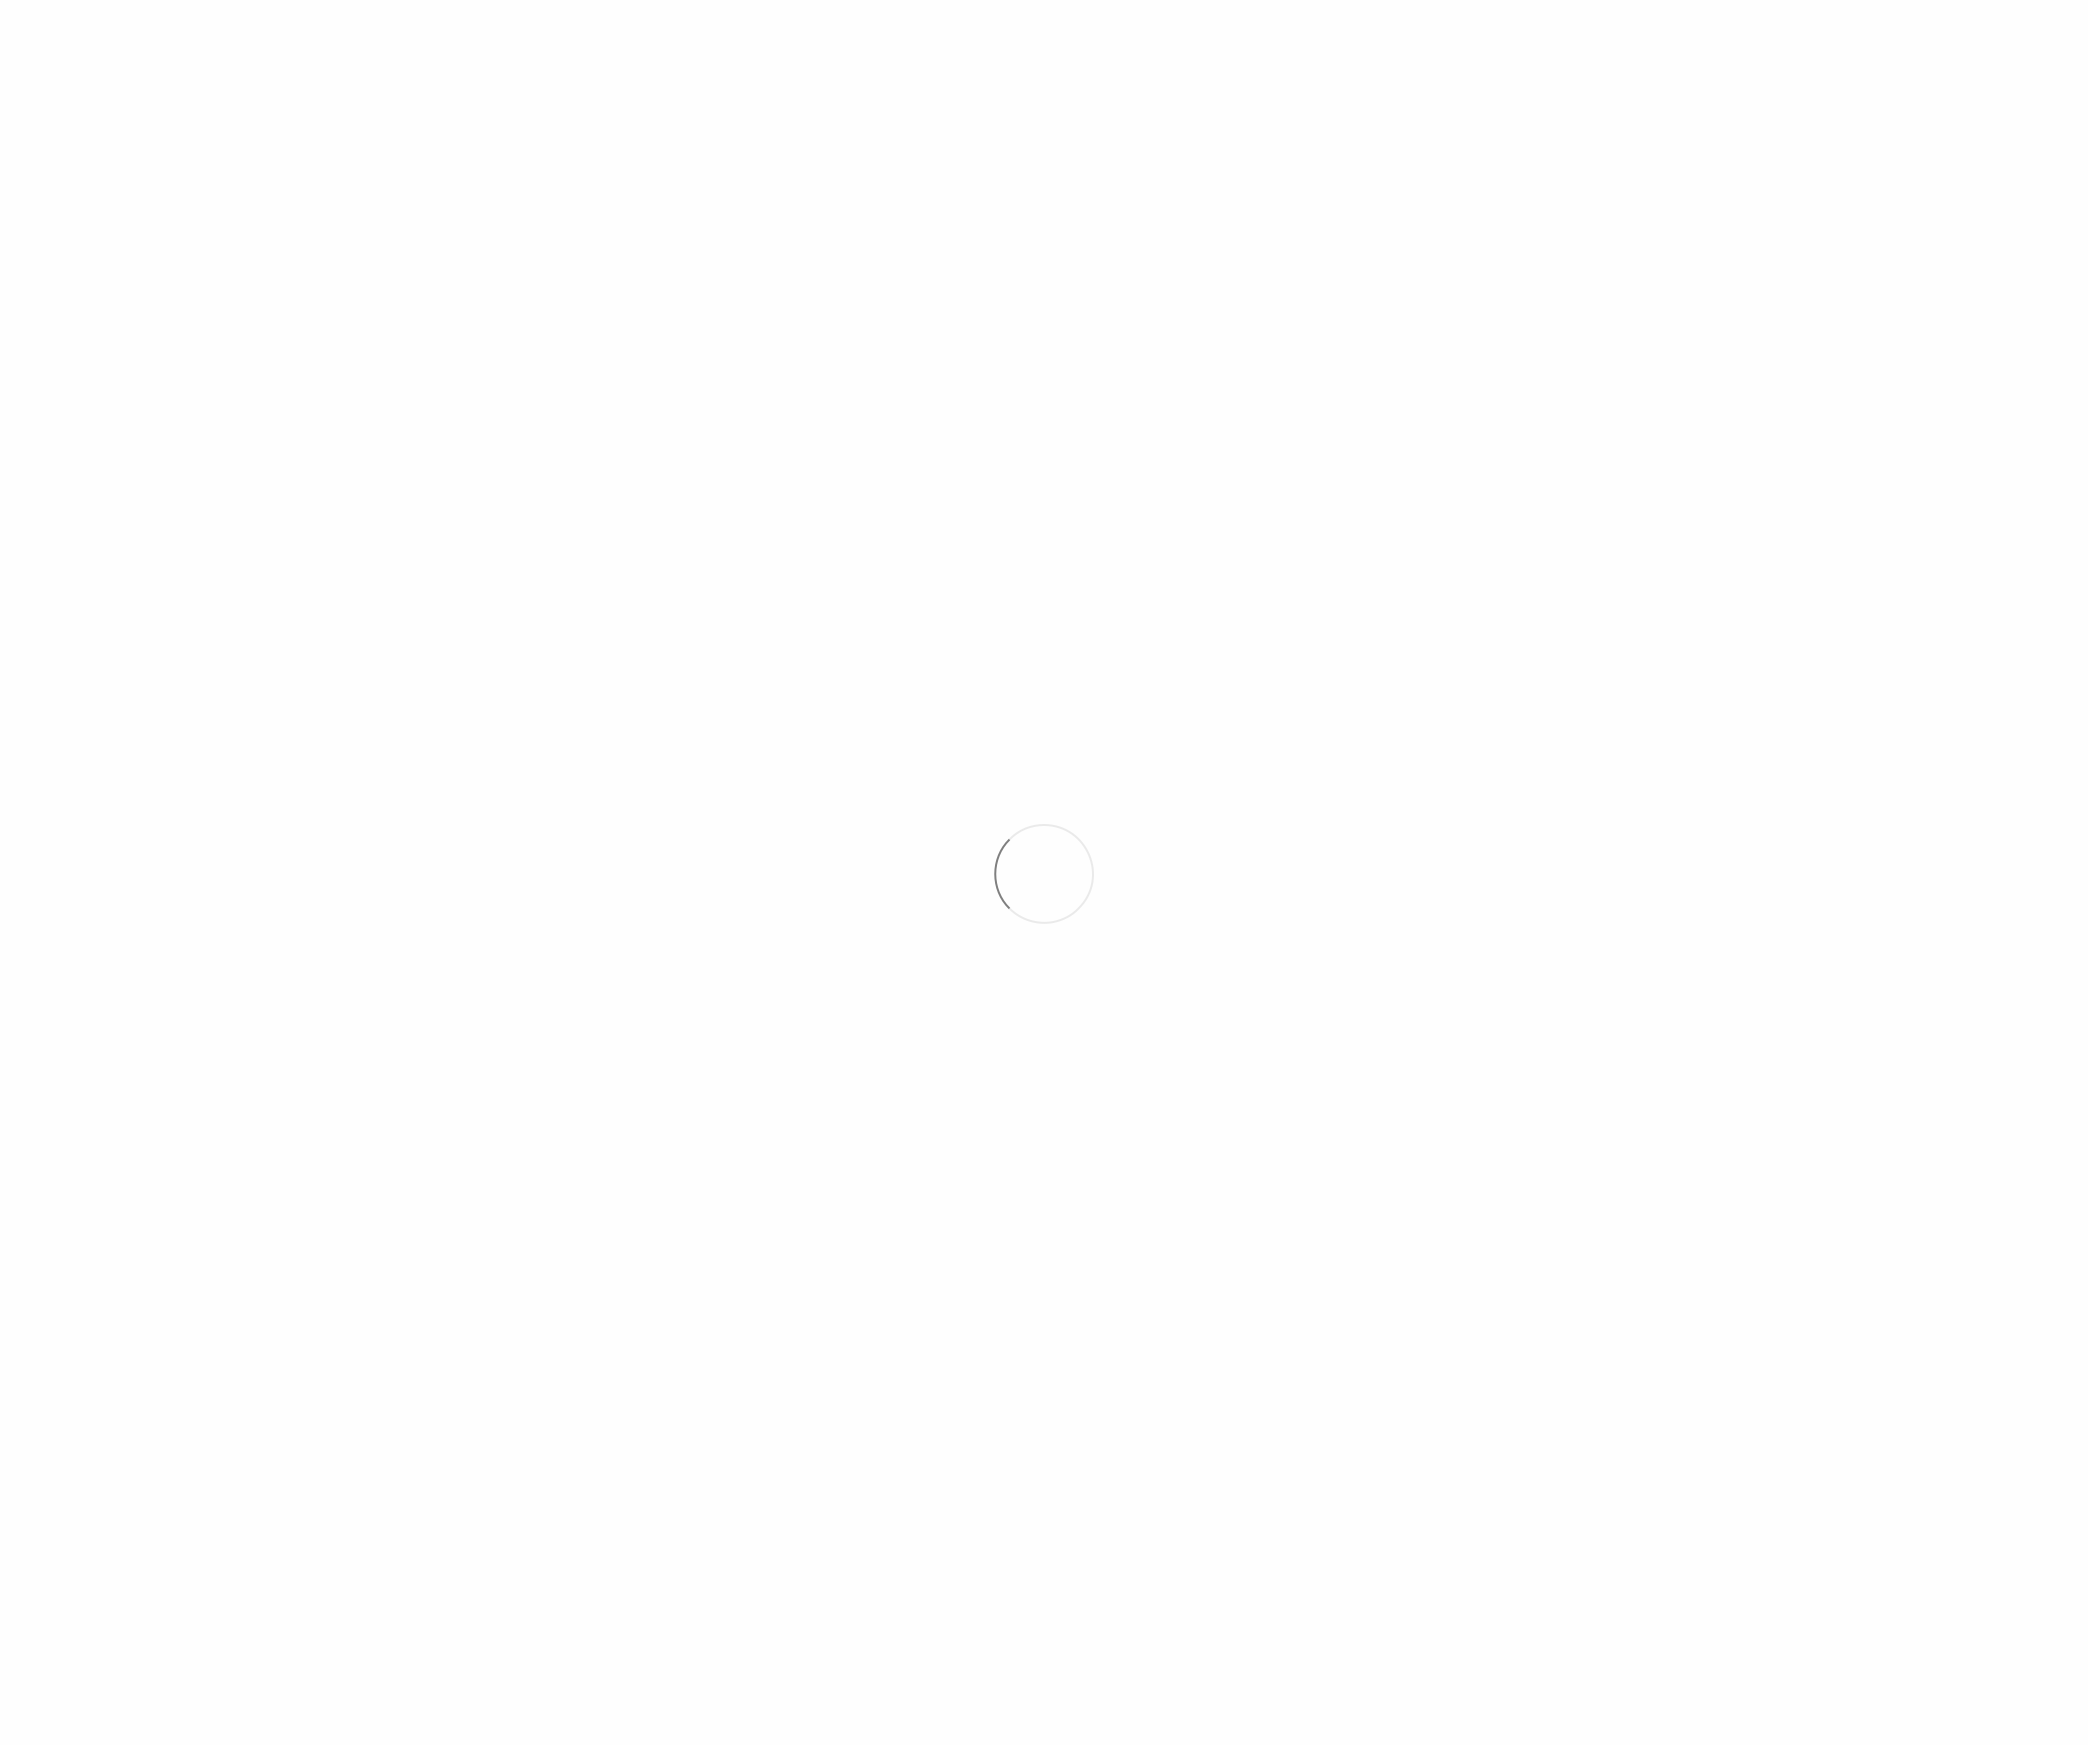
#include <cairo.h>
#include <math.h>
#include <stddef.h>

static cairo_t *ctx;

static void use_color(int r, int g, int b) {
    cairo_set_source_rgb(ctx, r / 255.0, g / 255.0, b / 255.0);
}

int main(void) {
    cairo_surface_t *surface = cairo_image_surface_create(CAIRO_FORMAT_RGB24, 2088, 1745);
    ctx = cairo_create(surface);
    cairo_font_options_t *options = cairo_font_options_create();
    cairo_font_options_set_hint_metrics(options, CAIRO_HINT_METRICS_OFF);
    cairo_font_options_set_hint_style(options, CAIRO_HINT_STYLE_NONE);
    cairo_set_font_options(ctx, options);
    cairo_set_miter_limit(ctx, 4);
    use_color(254, 254, 254);
    cairo_paint(ctx);
    cairo_new_path(ctx);
    cairo_move_to(ctx, 1009.5, 839.5);
    cairo_curve_to(ctx, 1018.5, 830, 1031, 825, 1044, 825);
    cairo_curve_to(ctx, 1087.5, 825, 1109.5, 878, 1078.5, 908.5);
    cairo_curve_to(ctx, 1072, 915.5, 1063, 920, 1053.5, 922);
    cairo_curve_to(ctx, 1037.5, 925, 1021, 920, 1009.5, 908.5);
    use_color(234, 234, 234);
    cairo_stroke(ctx);
    cairo_new_path(ctx);
    cairo_move_to(ctx, 1009.5, 908.5);
    cairo_curve_to(ctx, 990.5, 890, 990.5, 858, 1009.5, 839.5);
    use_color(127, 127, 127);
    cairo_stroke(ctx);
    cairo_surface_write_to_png(surface, "result.png");
    cairo_font_options_destroy(options);
    cairo_destroy(ctx);
    cairo_surface_destroy(surface);
    return 0;
}
